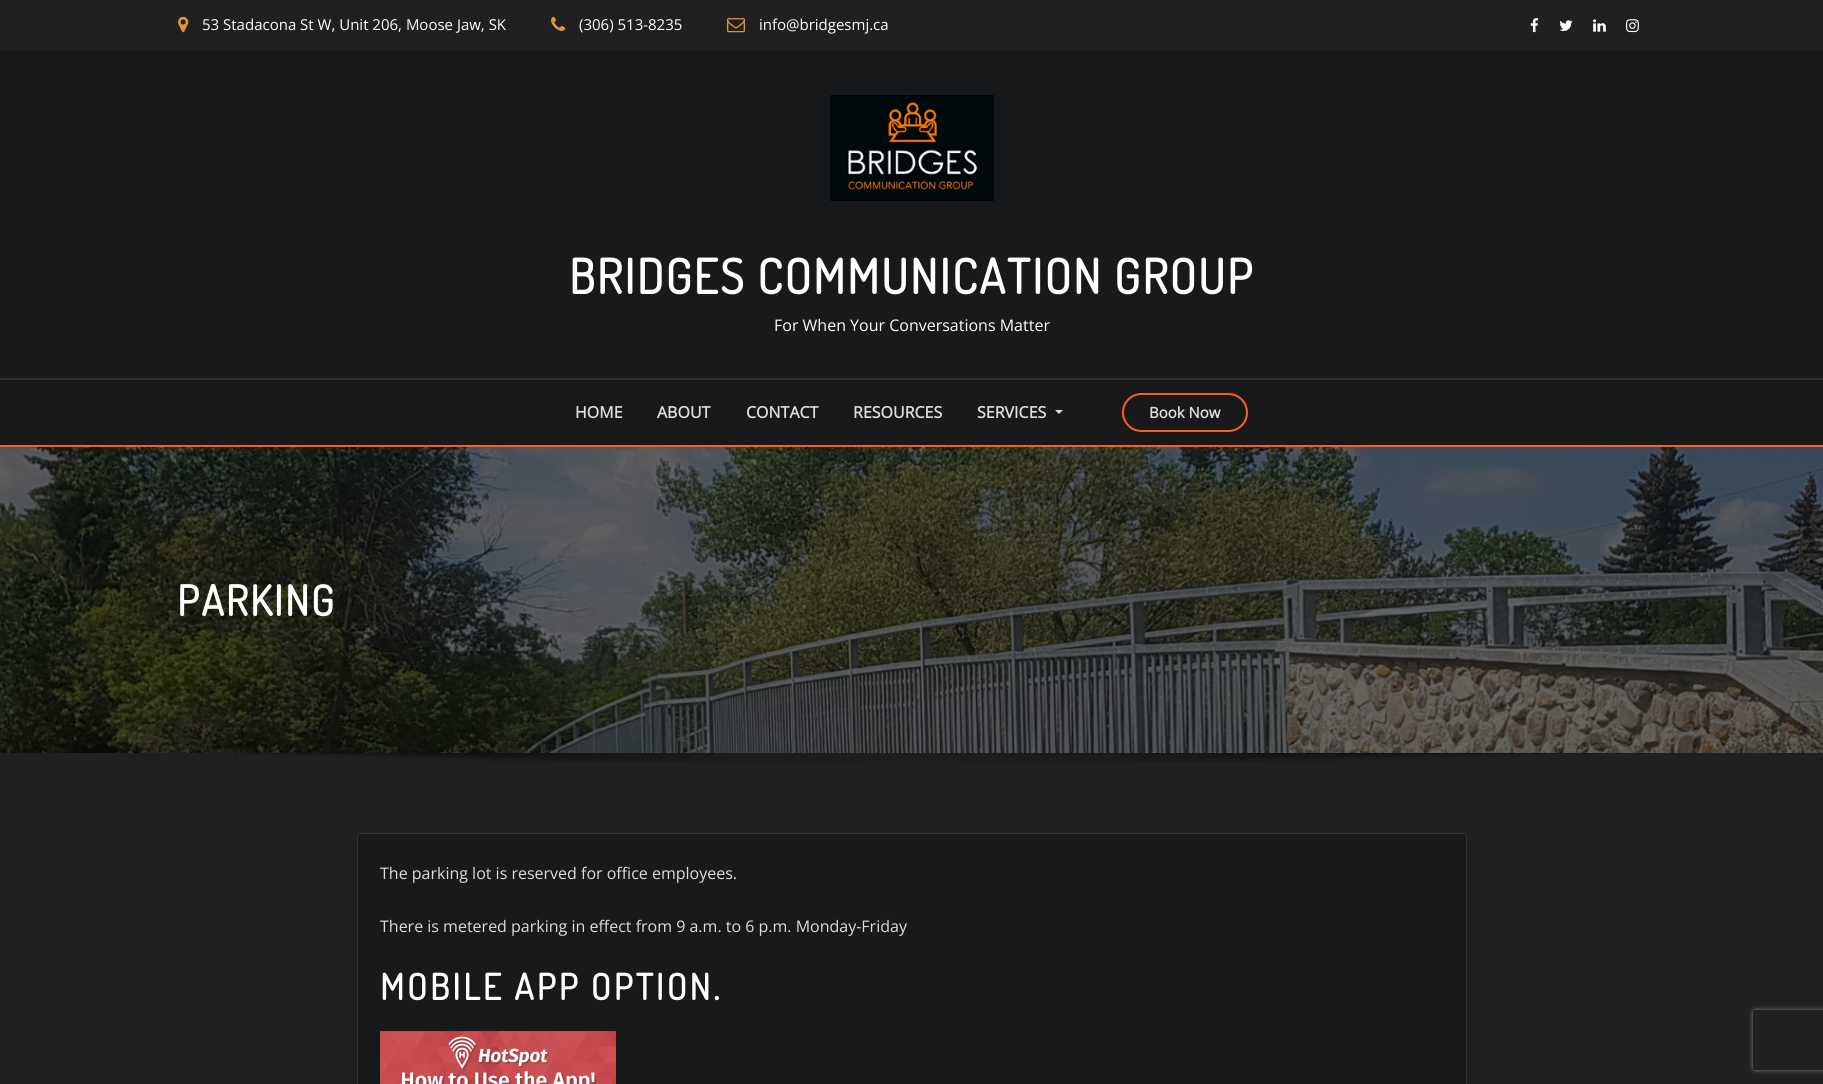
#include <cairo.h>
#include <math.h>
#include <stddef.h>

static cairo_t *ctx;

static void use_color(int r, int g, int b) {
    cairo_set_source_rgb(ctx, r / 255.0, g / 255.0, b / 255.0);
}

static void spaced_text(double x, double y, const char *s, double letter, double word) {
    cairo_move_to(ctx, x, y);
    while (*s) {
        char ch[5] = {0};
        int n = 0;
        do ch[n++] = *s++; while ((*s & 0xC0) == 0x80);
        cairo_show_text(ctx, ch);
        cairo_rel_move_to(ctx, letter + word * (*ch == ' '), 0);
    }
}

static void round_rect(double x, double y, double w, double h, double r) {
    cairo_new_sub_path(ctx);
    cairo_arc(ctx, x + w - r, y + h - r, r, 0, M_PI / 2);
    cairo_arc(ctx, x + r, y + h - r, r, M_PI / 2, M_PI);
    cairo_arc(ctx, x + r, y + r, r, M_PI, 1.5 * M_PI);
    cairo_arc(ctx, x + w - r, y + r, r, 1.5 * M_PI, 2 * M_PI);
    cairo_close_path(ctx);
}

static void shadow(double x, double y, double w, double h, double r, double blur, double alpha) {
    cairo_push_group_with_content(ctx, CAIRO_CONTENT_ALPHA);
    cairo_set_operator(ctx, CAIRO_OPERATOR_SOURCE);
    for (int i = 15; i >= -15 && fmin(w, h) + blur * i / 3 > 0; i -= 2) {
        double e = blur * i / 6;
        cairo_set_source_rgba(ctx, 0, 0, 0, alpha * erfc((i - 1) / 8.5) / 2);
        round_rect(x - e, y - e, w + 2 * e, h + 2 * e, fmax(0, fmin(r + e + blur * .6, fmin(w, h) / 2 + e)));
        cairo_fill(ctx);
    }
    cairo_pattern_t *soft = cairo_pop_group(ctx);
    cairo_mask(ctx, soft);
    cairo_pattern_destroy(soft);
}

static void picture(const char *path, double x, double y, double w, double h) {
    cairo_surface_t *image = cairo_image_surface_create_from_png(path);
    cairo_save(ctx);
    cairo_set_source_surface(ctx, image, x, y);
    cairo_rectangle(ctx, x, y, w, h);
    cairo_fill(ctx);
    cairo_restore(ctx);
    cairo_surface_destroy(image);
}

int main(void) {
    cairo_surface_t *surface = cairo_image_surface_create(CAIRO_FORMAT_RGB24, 1823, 1084);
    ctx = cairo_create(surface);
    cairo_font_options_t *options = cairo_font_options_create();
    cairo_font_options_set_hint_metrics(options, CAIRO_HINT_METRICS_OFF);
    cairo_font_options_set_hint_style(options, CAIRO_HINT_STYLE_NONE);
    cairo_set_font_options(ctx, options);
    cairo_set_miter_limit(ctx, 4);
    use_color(24, 25, 27);
    cairo_paint(ctx);
    use_color(32, 32, 32);
    cairo_rectangle(ctx, 0, 0, 1823, 50);
    cairo_fill(ctx);
    picture("img1.png", 178, 16, 11, 17);
    cairo_select_font_face(ctx, "Open Sans", CAIRO_FONT_SLANT_NORMAL, CAIRO_FONT_WEIGHT_NORMAL);
    cairo_set_font_size(ctx, 15);
    use_color(255, 255, 255);
    cairo_move_to(ctx, 202, 30);
    cairo_show_text(ctx, "53 Stadacona St W, Unit 206, Moose Jaw, SK");
    picture("img2.png", 551, 16, 15, 15);
    cairo_move_to(ctx, 579, 30);
    cairo_show_text(ctx, "(306) 513-8235");
    picture("img3.png", 727, 18, 18, 15);
    cairo_move_to(ctx, 759, 30);
    cairo_show_text(ctx, "info@bridgesmj.ca");
    picture("img4.png", 1530, 18, 9, 15);
    picture("img5.png", 1559, 20, 14, 11);
    picture("img6.png", 1593, 19, 13, 13);
    picture("img7.png", 1626, 19, 13, 14);
    picture("img8.png", 830, 95, 164, 106);
    cairo_select_font_face(ctx, "Dosis", CAIRO_FONT_SLANT_NORMAL, CAIRO_FONT_WEIGHT_BOLD);
    cairo_set_font_size(ctx, 48);
    spaced_text(569, 294, "BRIDGES COMMUNICATION GROUP", 2, 0);
    cairo_select_font_face(ctx, "Open Sans", CAIRO_FONT_SLANT_NORMAL, CAIRO_FONT_WEIGHT_NORMAL);
    cairo_set_font_size(ctx, 16);
    cairo_move_to(ctx, 774, 331);
    cairo_show_text(ctx, "For When Your Conversations Matter");
    use_color(51, 51, 51);
    cairo_rectangle(ctx, 0, 378, 1823, 2);
    cairo_fill(ctx);
    use_color(255, 93, 32);
    cairo_rectangle(ctx, 0, 445, 1823, 2);
    cairo_fill(ctx);
    cairo_select_font_face(ctx, "Open Sans", CAIRO_FONT_SLANT_NORMAL, CAIRO_FONT_WEIGHT_BOLD);
    use_color(221, 221, 221);
    cairo_move_to(ctx, 575, 418);
    cairo_show_text(ctx, "HOME");
    cairo_move_to(ctx, 657, 418);
    cairo_show_text(ctx, "ABOUT");
    cairo_move_to(ctx, 746, 418);
    cairo_show_text(ctx, "CONTACT");
    cairo_move_to(ctx, 853, 418);
    cairo_show_text(ctx, "RESOURCES");
    cairo_move_to(ctx, 977, 418);
    cairo_show_text(ctx, "SERVICES");
    cairo_new_path(ctx);
    cairo_move_to(ctx, 1055, 410);
    cairo_line_to(ctx, 1063, 410);
    cairo_line_to(ctx, 1059, 414);
    cairo_close_path(ctx);
    cairo_fill(ctx);
    round_rect(1123, 394, 124, 37, 18.5);
    use_color(255, 93, 32);
    cairo_stroke(ctx);
    cairo_set_font_size(ctx, 15);
    use_color(221, 221, 221);
    cairo_move_to(ctx, 1149, 418);
    cairo_show_text(ctx, "Book Now");
    picture("img9.png", 0, 447, 1823, 306);
    cairo_select_font_face(ctx, "Dosis", CAIRO_FONT_SLANT_NORMAL, CAIRO_FONT_WEIGHT_BOLD);
    cairo_set_font_size(ctx, 42);
    use_color(255, 255, 255);
    spaced_text(177, 616, "PARKING", 2, 0);
    use_color(32, 32, 32);
    cairo_rectangle(ctx, 0, 753, 1823, 331);
    cairo_fill(ctx);
    picture("img10.png", 233, 753, 1357, 10);
    use_color(24, 25, 27);
    round_rect(357.5, 833.5, 1109, 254, 2.5);
    cairo_fill_preserve(ctx);
    use_color(51, 51, 51);
    cairo_set_line_width(ctx, 1);
    cairo_stroke(ctx);
    cairo_select_font_face(ctx, "Open Sans", CAIRO_FONT_SLANT_NORMAL, CAIRO_FONT_WEIGHT_NORMAL);
    cairo_set_font_size(ctx, 16);
    use_color(221, 221, 221);
    cairo_move_to(ctx, 380, 879);
    cairo_show_text(ctx, "The parking lot is reserved for office employees.");
    cairo_move_to(ctx, 380, 932);
    cairo_show_text(ctx, "There is metered parking in effect from 9 a.m. to 6 p.m. Monday-Friday");
    cairo_select_font_face(ctx, "Dosis", CAIRO_FONT_SLANT_NORMAL, CAIRO_FONT_WEIGHT_BOLD);
    cairo_set_font_size(ctx, 36);
    use_color(255, 255, 255);
    spaced_text(380, 1000, "MOBILE APP OPTION.", 3, 0);
    picture("img11.png", 380, 1031, 236, 53);
    cairo_save(ctx);
    cairo_set_fill_rule(ctx, CAIRO_FILL_RULE_EVEN_ODD);
    cairo_new_path(ctx);
    cairo_move_to(ctx, 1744, 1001);
    cairo_line_to(ctx, 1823, 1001);
    cairo_line_to(ctx, 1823, 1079);
    cairo_line_to(ctx, 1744, 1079);
    cairo_close_path(ctx);
    cairo_move_to(ctx, 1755, 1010);
    cairo_line_to(ctx, 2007, 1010);
    cairo_curve_to(ctx, 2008, 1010, 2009, 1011, 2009, 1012);
    cairo_line_to(ctx, 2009, 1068);
    cairo_curve_to(ctx, 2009, 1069, 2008, 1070, 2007, 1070);
    cairo_line_to(ctx, 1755, 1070);
    cairo_curve_to(ctx, 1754, 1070, 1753, 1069, 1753, 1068);
    cairo_line_to(ctx, 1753, 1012);
    cairo_curve_to(ctx, 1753, 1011, 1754, 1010, 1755, 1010);
    cairo_close_path(ctx);
    cairo_clip(ctx);
    use_color(128, 128, 128);
    shadow(1753, 1010, 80, 60, 2, 2.5, 1);
    cairo_restore(ctx);
    cairo_surface_write_to_png(surface, "result.png");
    cairo_font_options_destroy(options);
    cairo_destroy(ctx);
    cairo_surface_destroy(surface);
    return 0;
}
